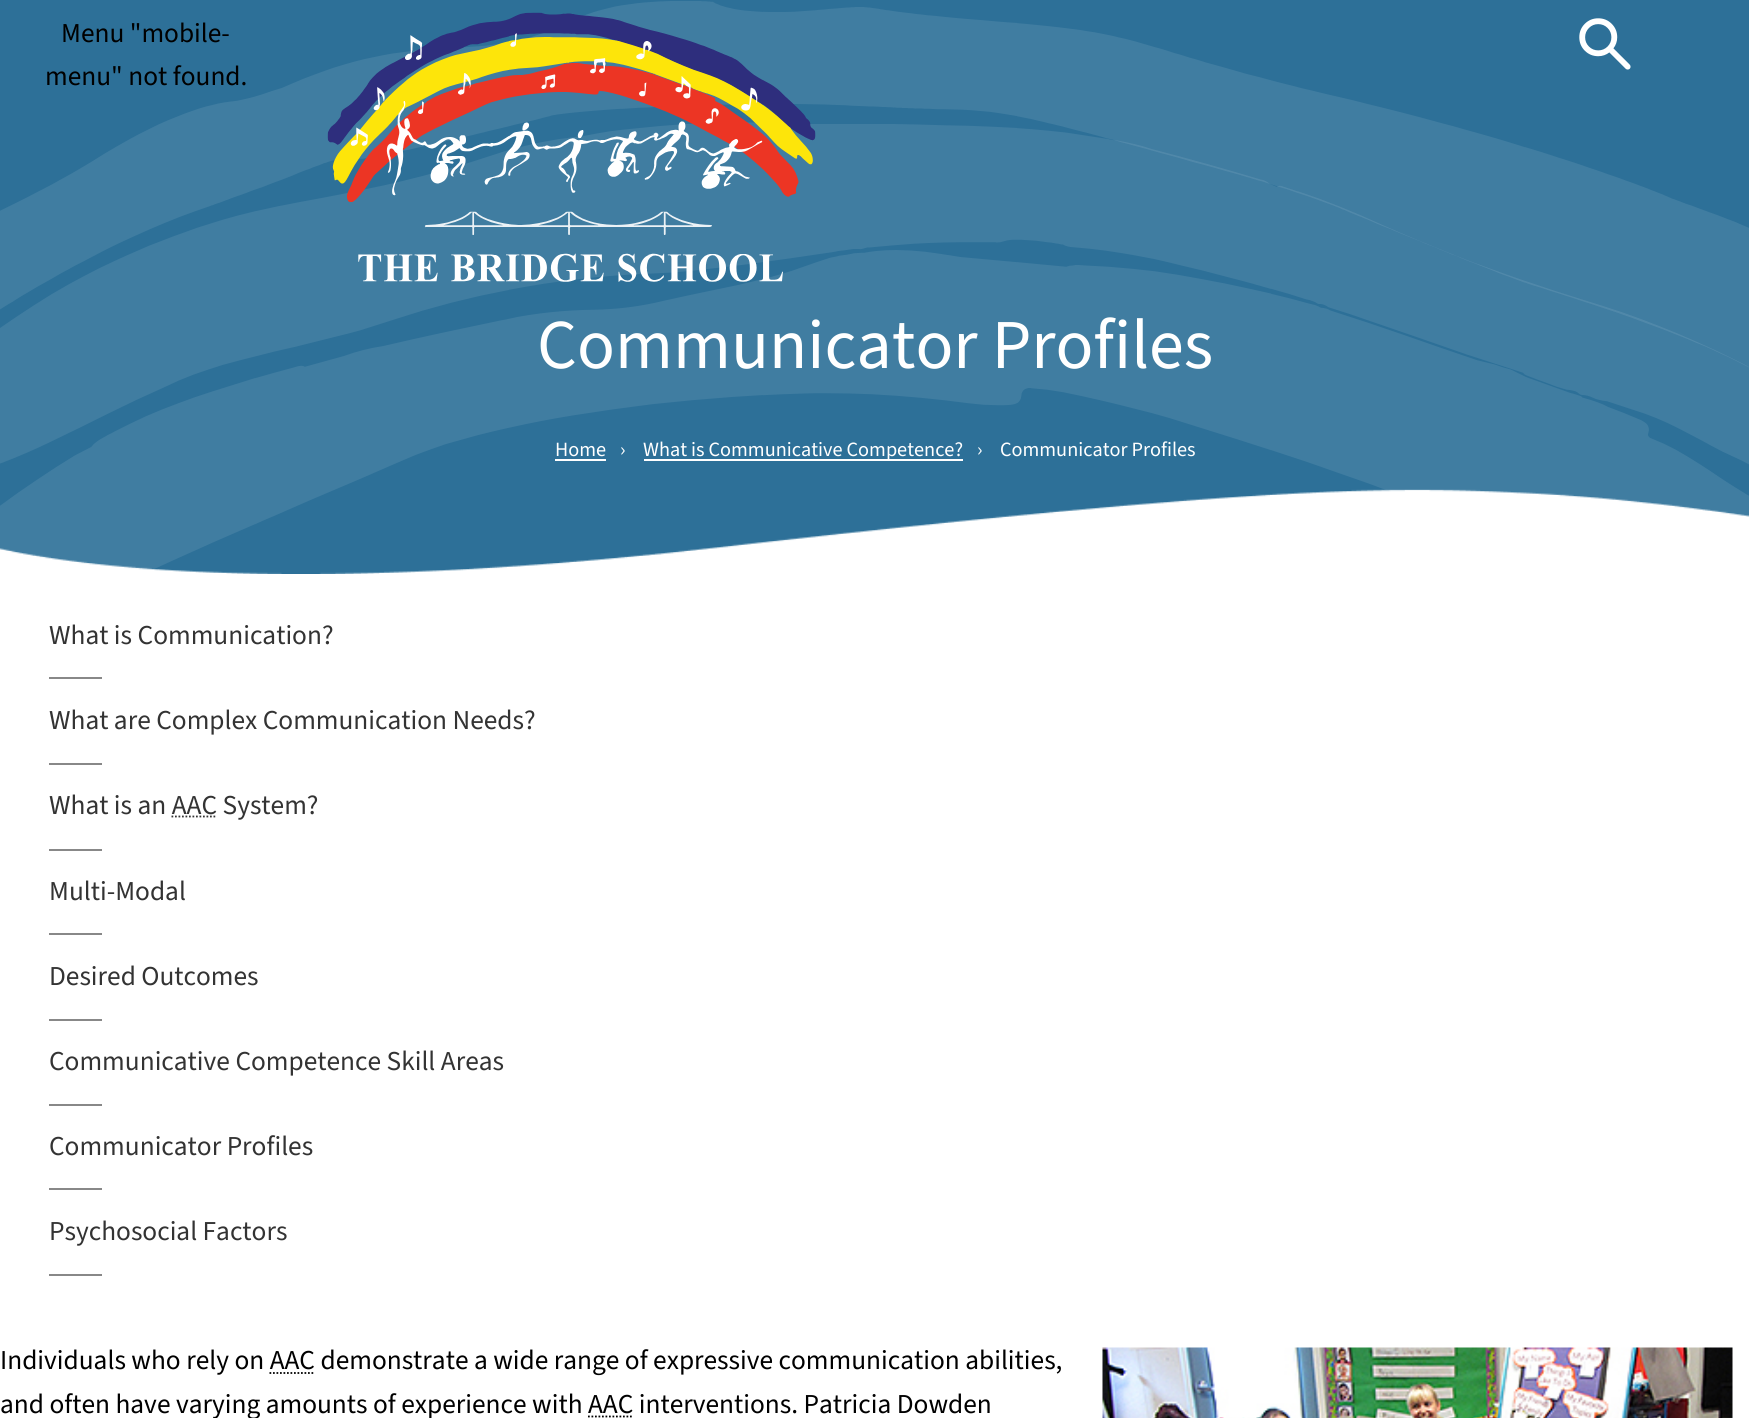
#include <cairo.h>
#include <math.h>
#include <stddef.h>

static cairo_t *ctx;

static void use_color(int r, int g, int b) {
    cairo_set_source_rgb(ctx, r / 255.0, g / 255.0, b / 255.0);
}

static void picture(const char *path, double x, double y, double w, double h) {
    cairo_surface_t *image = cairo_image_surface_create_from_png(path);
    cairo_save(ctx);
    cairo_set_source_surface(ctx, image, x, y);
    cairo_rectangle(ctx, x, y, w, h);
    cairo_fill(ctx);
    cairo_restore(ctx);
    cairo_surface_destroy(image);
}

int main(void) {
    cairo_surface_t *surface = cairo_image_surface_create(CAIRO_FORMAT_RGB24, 1749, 1418);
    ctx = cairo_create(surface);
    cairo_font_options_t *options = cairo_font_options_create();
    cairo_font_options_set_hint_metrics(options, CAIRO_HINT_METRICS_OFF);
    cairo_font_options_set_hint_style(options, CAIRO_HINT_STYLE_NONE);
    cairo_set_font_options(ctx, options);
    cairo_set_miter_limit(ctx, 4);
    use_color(255, 255, 255);
    cairo_paint(ctx);
    use_color(45, 112, 152);
    cairo_rectangle(ctx, 0, 0, 1749, 574);
    cairo_fill(ctx);
    picture("img1.png", 0, 1, 1749, 573);
    cairo_select_font_face(ctx, "Source Sans 3", CAIRO_FONT_SLANT_NORMAL, CAIRO_FONT_WEIGHT_NORMAL);
    cairo_set_font_size(ctx, 27.35);
    use_color(0, 0, 0);
    cairo_move_to(ctx, 61, 42);
    cairo_show_text(ctx, "Menu \"mobile-");
    cairo_move_to(ctx, 45, 85);
    cairo_show_text(ctx, "menu\" not found.");
    picture("img2.png", 327, 12, 489, 270);
    picture("img3.png", 1579, 18, 52, 52);
    cairo_set_font_size(ctx, 70);
    use_color(255, 255, 255);
    cairo_move_to(ctx, 537, 368);
    cairo_show_text(ctx, "Communicator Profiles");
    cairo_set_font_size(ctx, 20.25);
    cairo_move_to(ctx, 555, 456);
    cairo_show_text(ctx, "Home");
    cairo_rectangle(ctx, 555, 459, 51, 2);
    cairo_fill(ctx);
    cairo_move_to(ctx, 620, 456);
    cairo_show_text(ctx, "›");
    cairo_rectangle(ctx, 644, 459, 319, 2);
    cairo_fill(ctx);
    cairo_move_to(ctx, 643, 456);
    cairo_show_text(ctx, "What is Communicative Competence?");
    cairo_move_to(ctx, 977, 456);
    cairo_show_text(ctx, "›");
    cairo_move_to(ctx, 1000, 456);
    cairo_show_text(ctx, "Communicator Profiles");
    cairo_set_font_size(ctx, 27.35);
    use_color(51, 51, 51);
    cairo_move_to(ctx, 49, 644);
    cairo_show_text(ctx, "What is Communication?");
    use_color(136, 136, 136);
    cairo_rectangle(ctx, 49, 677, 53, 2);
    cairo_fill(ctx);
    use_color(51, 51, 51);
    cairo_move_to(ctx, 49, 729);
    cairo_show_text(ctx, "What are Complex Communication Needs?");
    use_color(136, 136, 136);
    cairo_rectangle(ctx, 49, 763, 53, 2);
    cairo_fill(ctx);
    use_color(51, 51, 51);
    cairo_move_to(ctx, 49, 814);
    cairo_show_text(ctx, "What is an AAC System?");
    cairo_new_path(ctx);
    cairo_move_to(ctx, 171.5, 816.5);
    cairo_line_to(ctx, 216.5, 816.5);
    cairo_set_line_width(ctx, 1.8);
    cairo_set_dash(ctx, (double[]){1.75, 1.75}, 2, 0);
    cairo_stroke(ctx);
    use_color(136, 136, 136);
    cairo_rectangle(ctx, 49, 849, 53, 2);
    cairo_fill(ctx);
    use_color(51, 51, 51);
    cairo_move_to(ctx, 49, 900);
    cairo_show_text(ctx, "Multi-Modal");
    use_color(136, 136, 136);
    cairo_rectangle(ctx, 49, 933, 53, 2);
    cairo_fill(ctx);
    use_color(51, 51, 51);
    cairo_move_to(ctx, 49, 985);
    cairo_show_text(ctx, "Desired Outcomes");
    use_color(136, 136, 136);
    cairo_rectangle(ctx, 49, 1019, 53, 2);
    cairo_fill(ctx);
    use_color(51, 51, 51);
    cairo_move_to(ctx, 49, 1070);
    cairo_show_text(ctx, "Communicative Competence Skill Areas");
    use_color(136, 136, 136);
    cairo_rectangle(ctx, 49, 1104, 53, 2);
    cairo_fill(ctx);
    use_color(51, 51, 51);
    cairo_move_to(ctx, 49, 1155);
    cairo_show_text(ctx, "Communicator Profiles");
    use_color(136, 136, 136);
    cairo_rectangle(ctx, 49, 1188, 53, 2);
    cairo_fill(ctx);
    use_color(51, 51, 51);
    cairo_move_to(ctx, 49, 1240);
    cairo_show_text(ctx, "Psychosocial Factors");
    use_color(136, 136, 136);
    cairo_rectangle(ctx, 49, 1274, 53, 2);
    cairo_fill(ctx);
    use_color(0, 0, 0);
    cairo_move_to(ctx, 0, 1369);
    cairo_show_text(ctx, "Individuals who rely on AAC demonstrate a wide range of expressive communication abilities,");
    cairo_new_path(ctx);
    cairo_move_to(ctx, 269.5, 1373);
    cairo_line_to(ctx, 315, 1373);
    cairo_stroke(ctx);
    cairo_move_to(ctx, 0, 1413);
    cairo_show_text(ctx, "and often have varying amounts of experience with AAC interventions. Patricia Dowden");
    cairo_new_path(ctx);
    cairo_move_to(ctx, 588, 1416.5);
    cairo_line_to(ctx, 633, 1416.5);
    cairo_stroke(ctx);
    picture("img4.png", 1102, 1347, 631, 71);
    cairo_surface_write_to_png(surface, "result.png");
    cairo_font_options_destroy(options);
    cairo_destroy(ctx);
    cairo_surface_destroy(surface);
    return 0;
}
